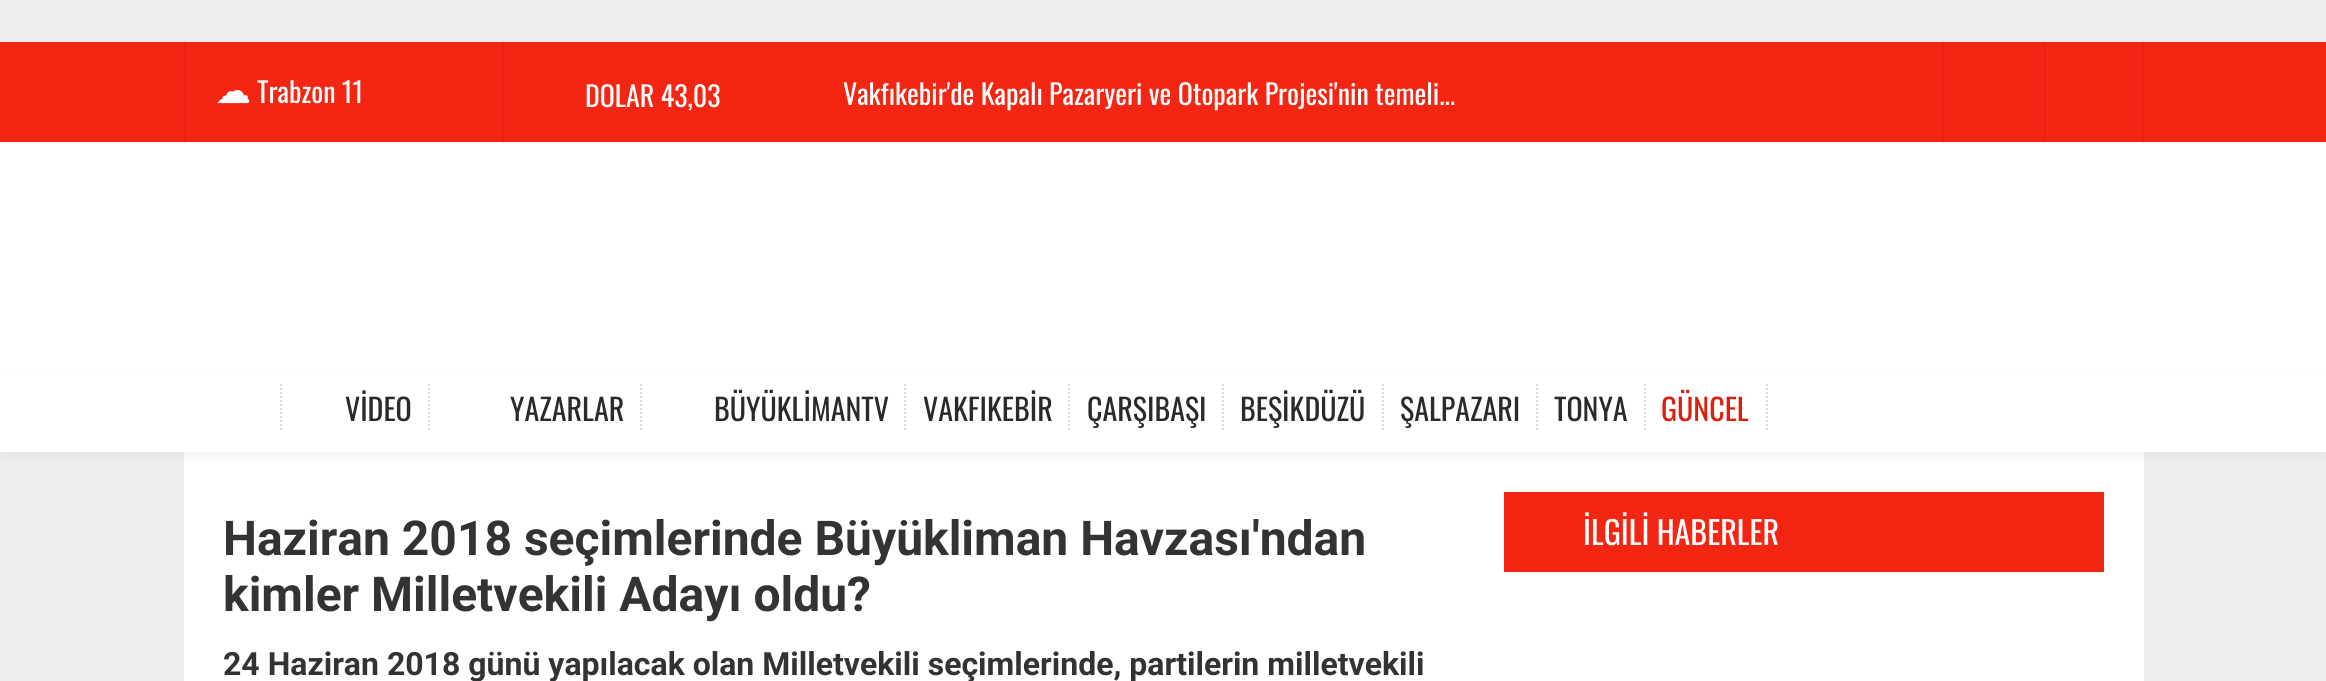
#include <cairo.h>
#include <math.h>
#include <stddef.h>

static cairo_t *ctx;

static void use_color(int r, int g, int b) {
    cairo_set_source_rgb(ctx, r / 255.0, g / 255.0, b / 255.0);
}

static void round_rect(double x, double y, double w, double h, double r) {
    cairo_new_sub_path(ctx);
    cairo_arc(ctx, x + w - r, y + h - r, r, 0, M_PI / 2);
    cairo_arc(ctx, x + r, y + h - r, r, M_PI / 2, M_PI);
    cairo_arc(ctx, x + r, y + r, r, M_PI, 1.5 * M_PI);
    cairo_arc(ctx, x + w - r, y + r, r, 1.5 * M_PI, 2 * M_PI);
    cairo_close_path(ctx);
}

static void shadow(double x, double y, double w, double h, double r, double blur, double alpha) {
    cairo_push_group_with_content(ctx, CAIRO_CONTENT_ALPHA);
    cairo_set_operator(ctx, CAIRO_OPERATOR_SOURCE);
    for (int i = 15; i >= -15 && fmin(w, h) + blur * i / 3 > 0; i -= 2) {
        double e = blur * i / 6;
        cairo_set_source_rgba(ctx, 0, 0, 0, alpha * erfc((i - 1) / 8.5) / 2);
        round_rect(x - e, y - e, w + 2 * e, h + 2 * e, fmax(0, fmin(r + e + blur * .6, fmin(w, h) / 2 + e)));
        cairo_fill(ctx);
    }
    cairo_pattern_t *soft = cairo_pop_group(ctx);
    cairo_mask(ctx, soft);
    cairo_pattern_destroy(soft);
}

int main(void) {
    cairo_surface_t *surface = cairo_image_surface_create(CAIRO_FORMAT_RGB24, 2326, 681);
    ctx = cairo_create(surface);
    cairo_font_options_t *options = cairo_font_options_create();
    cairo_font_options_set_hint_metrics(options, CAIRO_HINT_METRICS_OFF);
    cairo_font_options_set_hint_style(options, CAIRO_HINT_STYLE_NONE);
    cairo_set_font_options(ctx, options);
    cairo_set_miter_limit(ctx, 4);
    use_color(238, 238, 238);
    cairo_paint(ctx);
    use_color(255, 255, 255);
    cairo_rectangle(ctx, 0, 142, 2326, 310);
    cairo_fill(ctx);
    use_color(242, 38, 19);
    cairo_rectangle(ctx, 0, 42, 2326, 100);
    cairo_fill(ctx);
    use_color(230, 36, 18);
    cairo_rectangle(ctx, 184, 42, 2, 100);
    cairo_fill(ctx);
    cairo_select_font_face(ctx, "DejaVu Sans", CAIRO_FONT_SLANT_NORMAL, CAIRO_FONT_WEIGHT_NORMAL);
    cairo_set_font_size(ctx, 36);
    use_color(255, 255, 255);
    cairo_move_to(ctx, 215, 103);
    cairo_show_text(ctx, "☁");
    cairo_select_font_face(ctx, "Oswald", CAIRO_FONT_SLANT_NORMAL, CAIRO_FONT_WEIGHT_NORMAL);
    cairo_set_font_size(ctx, 28);
    cairo_move_to(ctx, 257, 103);
    cairo_show_text(ctx, "Trabzon 11");
    use_color(230, 36, 18);
    cairo_rectangle(ctx, 502, 42, 2, 100);
    cairo_fill(ctx);
    use_color(255, 255, 255);
    cairo_move_to(ctx, 585, 107);
    cairo_show_text(ctx, "DOLAR 43,03");
    cairo_move_to(ctx, 843, 105);
    cairo_show_text(ctx, "Vakfıkebir'de Kapalı Pazaryeri ve Otopark Projesi'nin temeli...");
    use_color(230, 36, 18);
    cairo_rectangle(ctx, 1942, 42, 2, 100);
    cairo_fill(ctx);
    cairo_rectangle(ctx, 2142, 42, 2, 100);
    cairo_fill(ctx);
    cairo_rectangle(ctx, 2044, 42, 2, 100);
    cairo_fill(ctx);
    use_color(255, 255, 255);
    cairo_rectangle(ctx, 184, 452, 1960, 229);
    cairo_fill(ctx);
    cairo_save(ctx);
    cairo_set_fill_rule(ctx, CAIRO_FILL_RULE_EVEN_ODD);
    cairo_new_path(ctx);
    cairo_move_to(ctx, 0, 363);
    cairo_line_to(ctx, 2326, 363);
    cairo_line_to(ctx, 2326, 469);
    cairo_line_to(ctx, 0, 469);
    cairo_close_path(ctx);
    cairo_move_to(ctx, 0, 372);
    cairo_line_to(ctx, 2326, 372);
    cairo_line_to(ctx, 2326, 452);
    cairo_line_to(ctx, 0, 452);
    cairo_close_path(ctx);
    cairo_clip(ctx);
    use_color(204, 204, 204);
    shadow(0, 376, 2326, 80, 0, 4, 0.25);
    cairo_restore(ctx);
    cairo_new_path(ctx);
    cairo_move_to(ctx, 281, 384);
    cairo_line_to(ctx, 281, 432);
    use_color(221, 221, 221);
    cairo_set_dash(ctx, (double[]){2, 2}, 2, 0);
    cairo_stroke(ctx);
    cairo_new_path(ctx);
    cairo_move_to(ctx, 429, 384);
    cairo_line_to(ctx, 429, 432);
    cairo_stroke(ctx);
    cairo_set_font_size(ctx, 30);
    use_color(42, 42, 42);
    cairo_move_to(ctx, 345, 421);
    cairo_show_text(ctx, "VİDEO");
    cairo_new_path(ctx);
    cairo_move_to(ctx, 641, 384);
    cairo_line_to(ctx, 641, 432);
    use_color(221, 221, 221);
    cairo_stroke(ctx);
    use_color(42, 42, 42);
    cairo_move_to(ctx, 510, 421);
    cairo_show_text(ctx, "YAZARLAR");
    cairo_new_path(ctx);
    cairo_move_to(ctx, 905, 384);
    cairo_line_to(ctx, 905, 432);
    use_color(221, 221, 221);
    cairo_stroke(ctx);
    use_color(42, 42, 42);
    cairo_move_to(ctx, 714, 421);
    cairo_show_text(ctx, "BÜYÜKLİMANTV");
    cairo_new_path(ctx);
    cairo_move_to(ctx, 1069, 384);
    cairo_line_to(ctx, 1069, 432);
    use_color(221, 221, 221);
    cairo_stroke(ctx);
    use_color(42, 42, 42);
    cairo_move_to(ctx, 923, 421);
    cairo_show_text(ctx, "VAKFIKEBİR");
    cairo_new_path(ctx);
    cairo_move_to(ctx, 1223, 384);
    cairo_line_to(ctx, 1223, 432);
    use_color(221, 221, 221);
    cairo_stroke(ctx);
    use_color(42, 42, 42);
    cairo_move_to(ctx, 1087, 421);
    cairo_show_text(ctx, "ÇARŞIBAŞI");
    cairo_new_path(ctx);
    cairo_move_to(ctx, 1383, 384);
    cairo_line_to(ctx, 1383, 432);
    use_color(221, 221, 221);
    cairo_stroke(ctx);
    use_color(42, 42, 42);
    cairo_move_to(ctx, 1240, 421);
    cairo_show_text(ctx, "BEŞİKDÜZÜ");
    cairo_new_path(ctx);
    cairo_move_to(ctx, 1537, 384);
    cairo_line_to(ctx, 1537, 432);
    use_color(221, 221, 221);
    cairo_stroke(ctx);
    use_color(42, 42, 42);
    cairo_move_to(ctx, 1400, 421);
    cairo_show_text(ctx, "ŞALPAZARI");
    cairo_new_path(ctx);
    cairo_move_to(ctx, 1645, 384);
    cairo_line_to(ctx, 1645, 432);
    use_color(221, 221, 221);
    cairo_stroke(ctx);
    use_color(42, 42, 42);
    cairo_move_to(ctx, 1554, 421);
    cairo_show_text(ctx, "TONYA");
    cairo_new_path(ctx);
    cairo_move_to(ctx, 1767, 384);
    cairo_line_to(ctx, 1767, 432);
    use_color(221, 221, 221);
    cairo_stroke(ctx);
    use_color(219, 32, 15);
    cairo_move_to(ctx, 1661, 421);
    cairo_show_text(ctx, "GÜNCEL");
    cairo_select_font_face(ctx, "Roboto", CAIRO_FONT_SLANT_NORMAL, CAIRO_FONT_WEIGHT_BOLD);
    cairo_set_font_size(ctx, 48);
    use_color(51, 51, 51);
    cairo_move_to(ctx, 223, 555);
    cairo_show_text(ctx, "Haziran 2018 seçimlerinde Büyükliman Havzası'ndan");
    cairo_move_to(ctx, 223, 611);
    cairo_show_text(ctx, "kimler Milletvekili Adayı oldu?");
    cairo_set_font_size(ctx, 32);
    cairo_move_to(ctx, 223, 675);
    cairo_show_text(ctx, "24 Haziran 2018 günü yapılacak olan Milletvekili seçimlerinde, partilerin milletvekili");
    use_color(242, 38, 19);
    cairo_rectangle(ctx, 1504, 492, 600, 80);
    cairo_fill(ctx);
    cairo_select_font_face(ctx, "Oswald", CAIRO_FONT_SLANT_NORMAL, CAIRO_FONT_WEIGHT_NORMAL);
    use_color(255, 255, 255);
    cairo_move_to(ctx, 1583, 545);
    cairo_show_text(ctx, "İLGİLİ HABERLER");
    cairo_surface_write_to_png(surface, "result.png");
    cairo_font_options_destroy(options);
    cairo_destroy(ctx);
    cairo_surface_destroy(surface);
    return 0;
}
